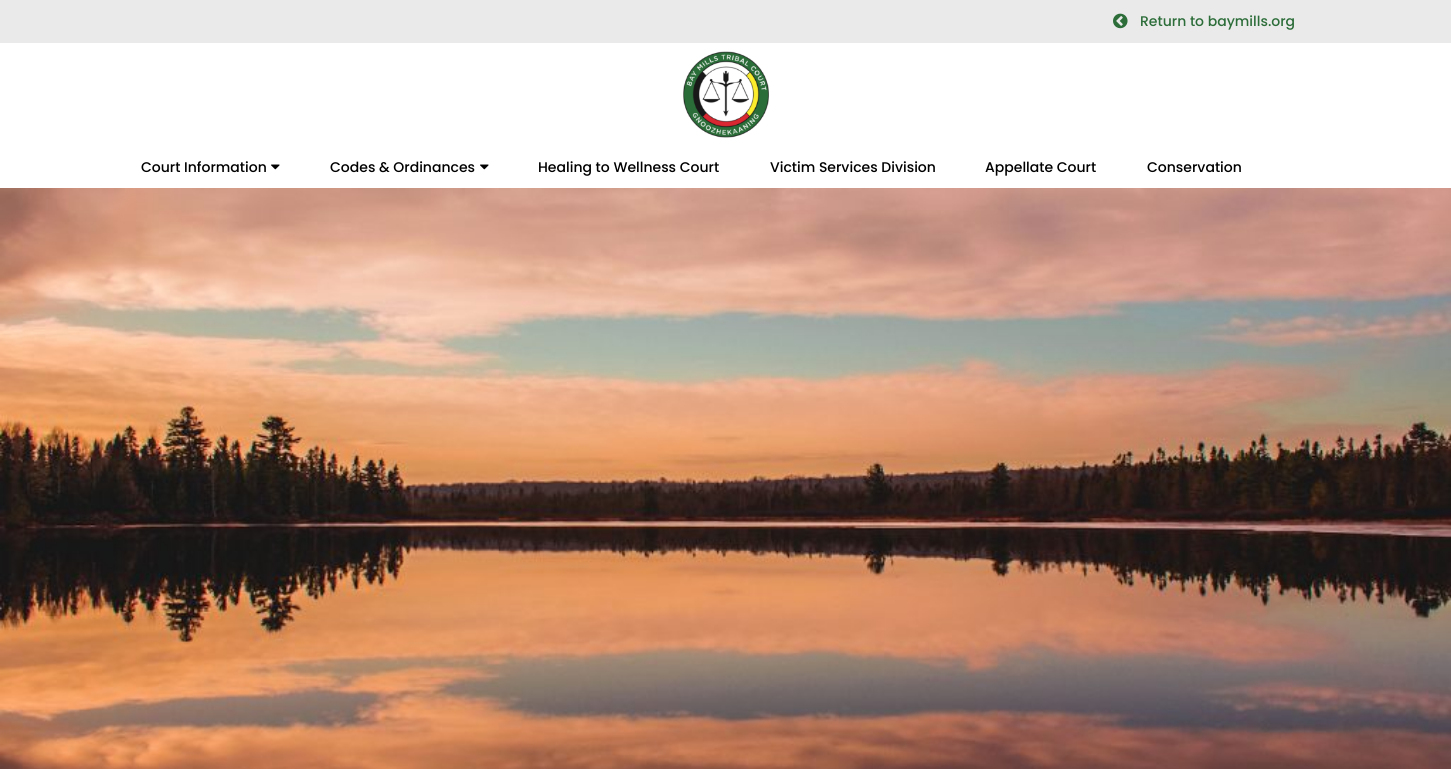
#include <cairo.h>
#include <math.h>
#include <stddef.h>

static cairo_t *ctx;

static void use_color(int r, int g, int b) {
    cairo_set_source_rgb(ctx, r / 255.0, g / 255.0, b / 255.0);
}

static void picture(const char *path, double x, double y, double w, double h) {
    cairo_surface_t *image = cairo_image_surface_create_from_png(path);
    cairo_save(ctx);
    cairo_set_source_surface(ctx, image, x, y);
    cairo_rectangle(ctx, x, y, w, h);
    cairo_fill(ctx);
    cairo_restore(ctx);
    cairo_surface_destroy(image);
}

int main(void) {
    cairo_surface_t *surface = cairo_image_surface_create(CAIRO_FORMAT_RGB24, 1451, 769);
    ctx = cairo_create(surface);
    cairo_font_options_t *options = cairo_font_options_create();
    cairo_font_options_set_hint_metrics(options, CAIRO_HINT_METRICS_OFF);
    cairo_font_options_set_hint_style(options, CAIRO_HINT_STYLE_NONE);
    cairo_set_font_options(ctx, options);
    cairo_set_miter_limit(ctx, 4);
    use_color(255, 255, 255);
    cairo_paint(ctx);
    use_color(234, 234, 234);
    cairo_rectangle(ctx, 0, 0, 1451, 43);
    cairo_fill(ctx);
    picture("img1.png", 1113, 13, 15, 16);
    cairo_select_font_face(ctx, "Poppins Medium", CAIRO_FONT_SLANT_NORMAL, CAIRO_FONT_WEIGHT_NORMAL);
    cairo_set_font_size(ctx, 14);
    use_color(44, 109, 57);
    cairo_move_to(ctx, 1140, 26);
    cairo_show_text(ctx, "Return to baymills.org");
    picture("img2.png", 683, 51, 86, 87);
    use_color(0, 0, 0);
    cairo_move_to(ctx, 141, 172);
    cairo_show_text(ctx, "Court Information");
    picture("img3.png", 271, 164, 9, 6);
    cairo_move_to(ctx, 330, 172);
    cairo_show_text(ctx, "Codes & Ordinances");
    picture("img3.png", 480, 164, 9, 6);
    cairo_move_to(ctx, 538, 172);
    cairo_show_text(ctx, "Healing to Wellness Court");
    cairo_move_to(ctx, 770, 172);
    cairo_show_text(ctx, "Victim Services Division");
    cairo_move_to(ctx, 985, 172);
    cairo_show_text(ctx, "Appellate Court");
    cairo_move_to(ctx, 1147, 172);
    cairo_show_text(ctx, "Conservation");
    picture("img4.png", 0, 188, 1451, 581);
    cairo_surface_write_to_png(surface, "result.png");
    cairo_font_options_destroy(options);
    cairo_destroy(ctx);
    cairo_surface_destroy(surface);
    return 0;
}
